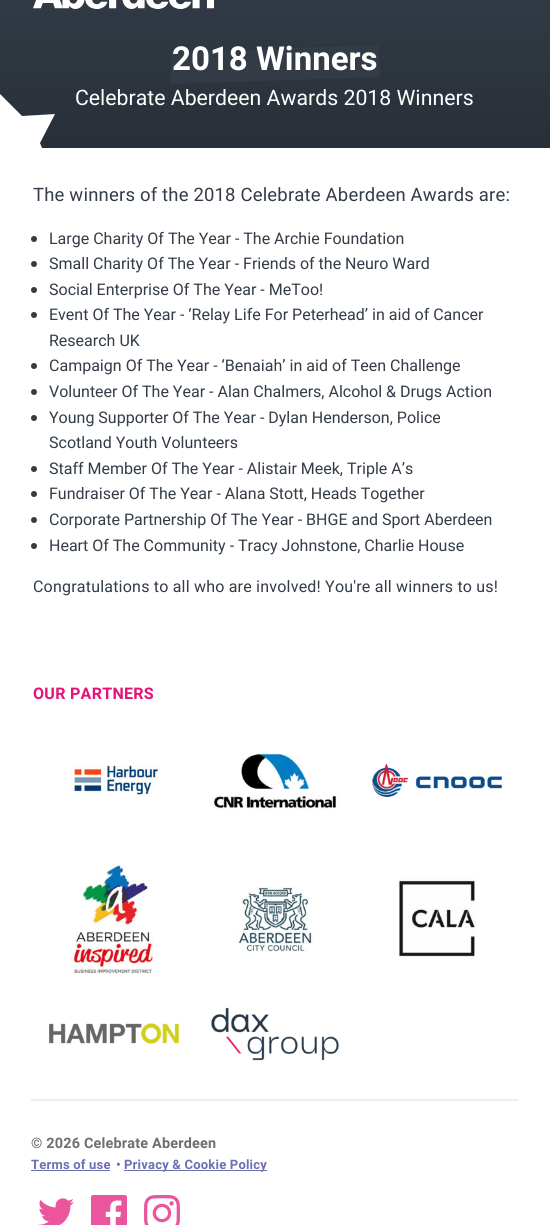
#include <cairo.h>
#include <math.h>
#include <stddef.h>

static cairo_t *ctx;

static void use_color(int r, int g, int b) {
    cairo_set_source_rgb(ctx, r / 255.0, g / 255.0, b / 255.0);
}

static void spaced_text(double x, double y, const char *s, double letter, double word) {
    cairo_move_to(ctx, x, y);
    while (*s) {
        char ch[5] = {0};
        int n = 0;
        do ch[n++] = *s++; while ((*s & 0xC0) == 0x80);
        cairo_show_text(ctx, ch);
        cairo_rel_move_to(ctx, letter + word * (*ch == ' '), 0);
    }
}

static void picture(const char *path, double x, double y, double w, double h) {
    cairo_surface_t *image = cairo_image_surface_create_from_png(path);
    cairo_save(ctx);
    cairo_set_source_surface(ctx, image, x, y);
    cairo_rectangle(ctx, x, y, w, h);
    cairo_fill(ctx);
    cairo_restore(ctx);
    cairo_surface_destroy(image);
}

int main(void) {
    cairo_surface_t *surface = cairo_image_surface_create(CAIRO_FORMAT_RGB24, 550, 1225);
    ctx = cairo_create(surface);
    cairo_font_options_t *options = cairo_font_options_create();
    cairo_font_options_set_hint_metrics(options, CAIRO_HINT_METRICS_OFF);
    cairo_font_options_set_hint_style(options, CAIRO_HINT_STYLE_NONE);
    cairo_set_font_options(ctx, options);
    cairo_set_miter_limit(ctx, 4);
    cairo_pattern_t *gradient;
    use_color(255, 255, 255);
    cairo_paint(ctx);
    gradient = cairo_pattern_create_linear(275, 148, 275, -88);
    cairo_pattern_add_color_stop_rgba(gradient, 0, 0.157, 0.184, 0.22, 1);
    cairo_pattern_add_color_stop_rgba(gradient, 0.75, 0.2, 0.235, 0.278, 1);
    cairo_set_source(ctx, gradient);
    cairo_pattern_destroy(gradient);
    cairo_rectangle(ctx, 0, 0, 550, 148);
    cairo_fill(ctx);
    picture("img1.png", 33, 0, 181, 9);
    cairo_set_source_rgba(ctx, 0.2, 0.235, 0.278, 0.95);
    cairo_new_path(ctx);
    cairo_move_to(ctx, 170, 52);
    cairo_line_to(ctx, 379, 45);
    cairo_line_to(ctx, 380, 77);
    cairo_line_to(ctx, 171, 84);
    cairo_close_path(ctx);
    cairo_fill(ctx);
    cairo_select_font_face(ctx, "Heebo", CAIRO_FONT_SLANT_NORMAL, CAIRO_FONT_WEIGHT_BOLD);
    cairo_set_font_size(ctx, 33);
    use_color(255, 255, 255);
    cairo_move_to(ctx, 172, 70);
    cairo_show_text(ctx, "2018 Winners");
    cairo_select_font_face(ctx, "Heebo", CAIRO_FONT_SLANT_NORMAL, CAIRO_FONT_WEIGHT_NORMAL);
    cairo_set_font_size(ctx, 21.25);
    cairo_move_to(ctx, 75, 105);
    cairo_show_text(ctx, "Celebrate Aberdeen Awards 2018 Winners");
    cairo_save(ctx);
    cairo_rectangle(ctx, 0, 93, 55, 55);
    cairo_clip(ctx);
    cairo_set_fill_rule(ctx, CAIRO_FILL_RULE_EVEN_ODD);
    cairo_new_path(ctx);
    cairo_move_to(ctx, 20, 168);
    cairo_line_to(ctx, -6, 189);
    cairo_line_to(ctx, -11, 157);
    cairo_line_to(ctx, -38, 139);
    cairo_line_to(ctx, -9, 124);
    cairo_line_to(ctx, -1, 93);
    cairo_line_to(ctx, 22, 116);
    cairo_line_to(ctx, 55, 114);
    cairo_line_to(ctx, 40, 143);
    cairo_line_to(ctx, 52, 173);
    cairo_close_path(ctx);
    cairo_fill(ctx);
    cairo_restore(ctx);
    cairo_set_font_size(ctx, 18.45);
    use_color(51, 60, 71);
    spaced_text(33, 201, "The winners of the 2018 Celebrate Aberdeen Awards are:", 0.2, 0);
    cairo_new_path(ctx);
    cairo_arc(ctx, 34, 239, 3, 0, 2 * M_PI);
    cairo_fill(ctx);
    cairo_set_font_size(ctx, 16);
    cairo_move_to(ctx, 49, 244);
    cairo_show_text(ctx, "Large Charity Of The Year - The Archie Foundation");
    cairo_new_path(ctx);
    cairo_arc(ctx, 34, 264, 3, 0, 2 * M_PI);
    cairo_fill(ctx);
    cairo_move_to(ctx, 49, 269);
    cairo_show_text(ctx, "Small Charity Of The Year - Friends of the Neuro Ward");
    cairo_new_path(ctx);
    cairo_arc(ctx, 34, 290, 3, 0, 2 * M_PI);
    cairo_fill(ctx);
    cairo_move_to(ctx, 49, 295);
    cairo_show_text(ctx, "Social Enterprise Of The Year - MeToo!");
    cairo_new_path(ctx);
    cairo_arc(ctx, 34, 315, 3, 0, 2 * M_PI);
    cairo_fill(ctx);
    cairo_move_to(ctx, 49, 320);
    cairo_show_text(ctx, "Event Of The Year - ‘Relay Life For Peterhead’ in aid of Cancer");
    cairo_move_to(ctx, 49, 346);
    cairo_show_text(ctx, "Research UK");
    cairo_new_path(ctx);
    cairo_arc(ctx, 34, 366, 3, 0, 2 * M_PI);
    cairo_fill(ctx);
    cairo_move_to(ctx, 49, 371);
    cairo_show_text(ctx, "Campaign Of The Year - ‘Benaiah’ in aid of Teen Challenge");
    cairo_new_path(ctx);
    cairo_arc(ctx, 34, 392, 3, 0, 2 * M_PI);
    cairo_fill(ctx);
    cairo_move_to(ctx, 49, 397);
    cairo_show_text(ctx, "Volunteer Of The Year - Alan Chalmers, Alcohol & Drugs Action");
    cairo_new_path(ctx);
    cairo_arc(ctx, 34, 418, 3, 0, 2 * M_PI);
    cairo_fill(ctx);
    cairo_move_to(ctx, 49, 423);
    cairo_show_text(ctx, "Young Supporter Of The Year - Dylan Henderson, Police");
    cairo_move_to(ctx, 49, 448);
    cairo_show_text(ctx, "Scotland Youth Volunteers");
    cairo_new_path(ctx);
    cairo_arc(ctx, 34, 469, 3, 0, 2 * M_PI);
    cairo_fill(ctx);
    cairo_move_to(ctx, 49, 474);
    cairo_show_text(ctx, "Staff Member Of The Year - Alistair Meek, Triple A’s");
    cairo_new_path(ctx);
    cairo_arc(ctx, 34, 494, 3, 0, 2 * M_PI);
    cairo_fill(ctx);
    cairo_move_to(ctx, 49, 499);
    cairo_show_text(ctx, "Fundraiser Of The Year - Alana Stott, Heads Together");
    cairo_new_path(ctx);
    cairo_arc(ctx, 34, 520, 3, 0, 2 * M_PI);
    cairo_fill(ctx);
    cairo_move_to(ctx, 49, 525);
    cairo_show_text(ctx, "Corporate Partnership Of The Year - BHGE and Sport Aberdeen");
    cairo_new_path(ctx);
    cairo_arc(ctx, 34, 546, 3, 0, 2 * M_PI);
    cairo_fill(ctx);
    cairo_move_to(ctx, 49, 551);
    cairo_show_text(ctx, "Heart Of The Community - Tracy Johnstone, Charlie House");
    spaced_text(33, 592, "Congratulations to all who are involved! You're all winners to us!", 0.2, 0);
    cairo_select_font_face(ctx, "Heebo", CAIRO_FONT_SLANT_NORMAL, CAIRO_FONT_WEIGHT_BOLD);
    use_color(228, 19, 120);
    spaced_text(33, 699, "OUR PARTNERS", 0.3, 0);
    picture("img2.png", 70, 765, 88, 32);
    picture("img3.png", 210, 753, 130, 56);
    picture("img4.png", 372, 764, 130, 33);
    picture("img5.png", 70, 864, 83, 110);
    picture("img6.png", 236, 887, 78, 65);
    picture("img7.png", 398, 877, 78, 83);
    picture("img8.png", 49, 1023, 130, 21);
    picture("img9.png", 211, 1007, 128, 54);
    use_color(238, 238, 238);
    cairo_rectangle(ctx, 31, 1099, 488, 2);
    cairo_fill(ctx);
    cairo_set_font_size(ctx, 14.4);
    use_color(111, 111, 111);
    spaced_text(31, 1148, "© 2026 Celebrate Aberdeen", 0.2, 0);
    cairo_set_font_size(ctx, 13);
    use_color(111, 112, 178);
    spaced_text(31, 1169, "Terms of use", 0.2, 0);
    cairo_rectangle(ctx, 31, 1170, 79, 1);
    cairo_fill(ctx);
    spaced_text(116, 1169, "•", 0.2, 0);
    cairo_rectangle(ctx, 124, 1170, 143, 1);
    cairo_fill(ctx);
    spaced_text(124, 1169, "Privacy & Cookie Policy", 0.2, 0);
    picture("img10.png", 38, 1198, 36, 27);
    picture("img11.png", 91, 1195, 36, 30);
    picture("img12.png", 144, 1195, 36, 30);
    cairo_surface_write_to_png(surface, "result.png");
    cairo_font_options_destroy(options);
    cairo_destroy(ctx);
    cairo_surface_destroy(surface);
    return 0;
}
